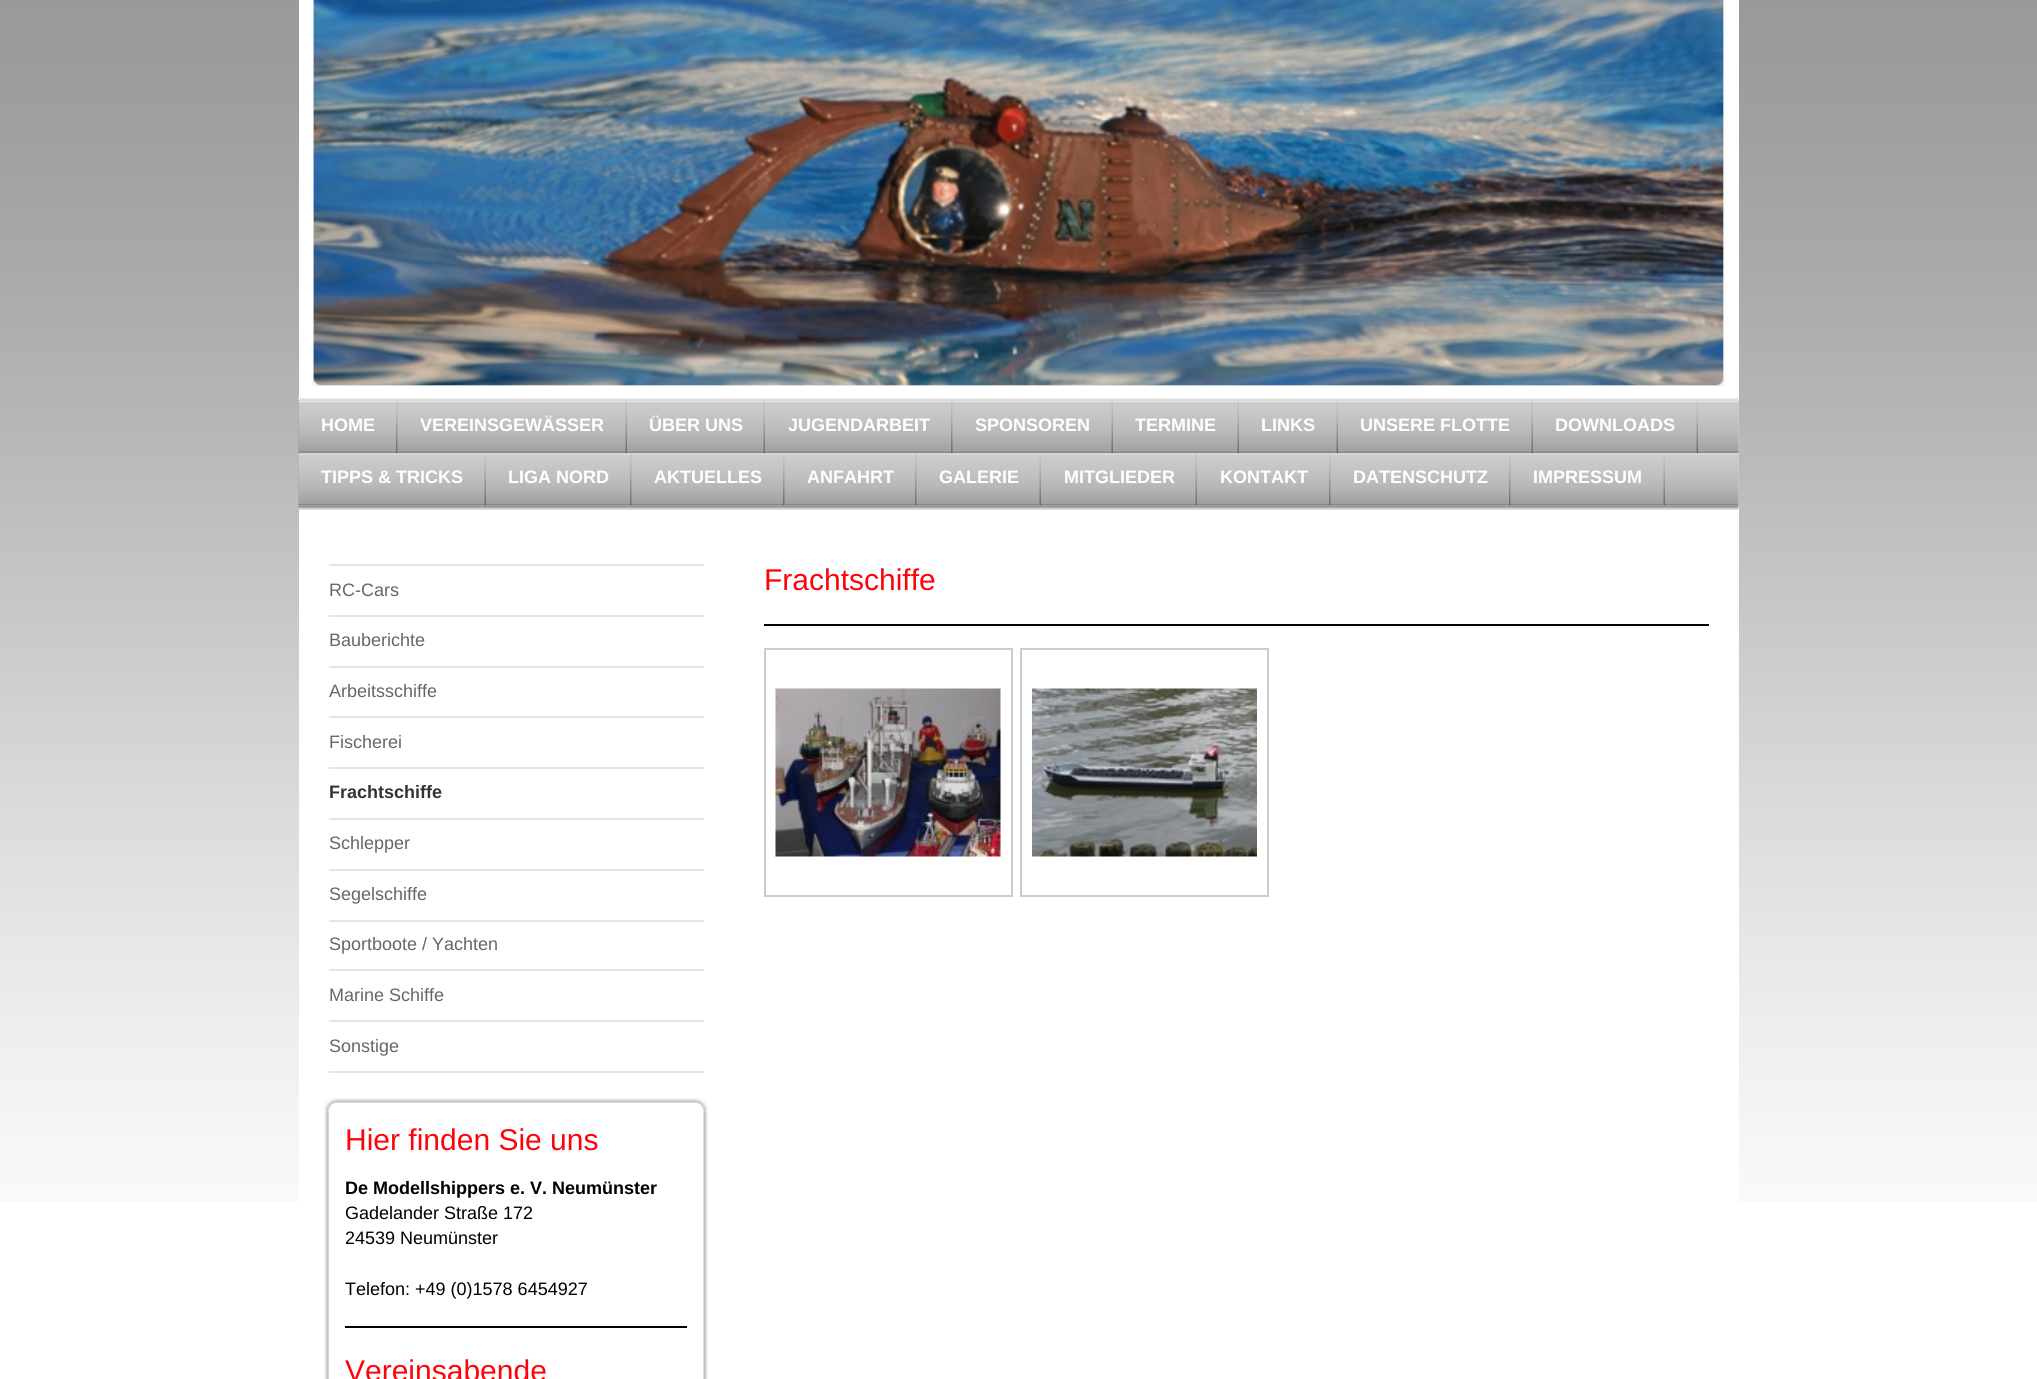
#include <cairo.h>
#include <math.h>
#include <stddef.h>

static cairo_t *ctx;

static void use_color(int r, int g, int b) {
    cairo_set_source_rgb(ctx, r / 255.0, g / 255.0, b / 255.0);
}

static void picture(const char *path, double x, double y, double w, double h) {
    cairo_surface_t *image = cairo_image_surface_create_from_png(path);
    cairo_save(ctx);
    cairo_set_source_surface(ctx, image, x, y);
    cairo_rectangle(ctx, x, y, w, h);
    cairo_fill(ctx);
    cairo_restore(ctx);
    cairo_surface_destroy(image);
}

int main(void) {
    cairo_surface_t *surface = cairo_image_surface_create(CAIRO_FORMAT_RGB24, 2037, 1379);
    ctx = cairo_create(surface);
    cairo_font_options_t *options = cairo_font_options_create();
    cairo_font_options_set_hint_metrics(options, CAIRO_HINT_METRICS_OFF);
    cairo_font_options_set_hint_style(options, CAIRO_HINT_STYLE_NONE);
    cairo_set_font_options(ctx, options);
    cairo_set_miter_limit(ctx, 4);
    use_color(255, 255, 255);
    cairo_paint(ctx);
    picture("img1.png", 0, 0, 2037, 1202);
    use_color(255, 255, 255);
    cairo_rectangle(ctx, 299, 0, 1440, 1202);
    cairo_fill(ctx);
    picture("img2.png", 313, 0, 1, 386);
    use_color(238, 238, 238);
    cairo_rectangle(ctx, 314, 0, 1410, 386);
    cairo_fill(ctx);
    picture("img3.png", 313, 0, 1411, 386);
    picture("img4.png", 313, 378, 8, 8);
    picture("img5.png", 1716, 378, 8, 8);
    picture("img6.png", 298, 397, 1441, 4);
    use_color(204, 204, 204);
    cairo_rectangle(ctx, 299, 401, 1440, 105);
    cairo_fill(ctx);
    picture("img12.png", 298, 505, 1441, 5);
    picture("img7.png", 298, 400, 1441, 106);
    picture("img8.png", 396, 401, 2, 52);
    cairo_select_font_face(ctx, "Liberation Sans", CAIRO_FONT_SLANT_NORMAL, CAIRO_FONT_WEIGHT_BOLD);
    cairo_set_font_size(ctx, 18);
    use_color(255, 255, 255);
    cairo_move_to(ctx, 321, 431);
    cairo_show_text(ctx, "HOME");
    picture("img9.png", 625, 401, 2, 52);
    cairo_move_to(ctx, 420, 431);
    cairo_show_text(ctx, "VEREINSGEWÄSSER");
    picture("img9.png", 763, 401, 2, 52);
    cairo_move_to(ctx, 649, 431);
    cairo_show_text(ctx, "ÜBER UNS");
    picture("img8.png", 951, 401, 2, 52);
    cairo_move_to(ctx, 788, 431);
    cairo_show_text(ctx, "JUGENDARBEIT");
    picture("img9.png", 1111, 401, 2, 52);
    cairo_move_to(ctx, 975, 431);
    cairo_show_text(ctx, "SPONSOREN");
    picture("img9.png", 1237, 401, 2, 52);
    cairo_move_to(ctx, 1135, 431);
    cairo_show_text(ctx, "TERMINE");
    picture("img9.png", 1336, 401, 2, 52);
    cairo_move_to(ctx, 1261, 431);
    cairo_show_text(ctx, "LINKS");
    picture("img9.png", 1531, 401, 2, 52);
    cairo_move_to(ctx, 1360, 431);
    cairo_show_text(ctx, "UNSERE FLOTTE");
    picture("img9.png", 1696, 401, 2, 52);
    cairo_move_to(ctx, 1555, 431);
    cairo_show_text(ctx, "DOWNLOADS");
    picture("img10.png", 484, 453, 2, 53);
    cairo_move_to(ctx, 321, 483);
    cairo_show_text(ctx, "TIPPS & TRICKS");
    picture("img11.png", 630, 453, 2, 53);
    cairo_move_to(ctx, 508, 483);
    cairo_show_text(ctx, "LIGA NORD");
    picture("img11.png", 783, 453, 2, 53);
    cairo_move_to(ctx, 654, 483);
    cairo_show_text(ctx, "AKTUELLES");
    picture("img11.png", 915, 453, 2, 53);
    cairo_move_to(ctx, 807, 483);
    cairo_show_text(ctx, "ANFAHRT");
    picture("img10.png", 1039, 453, 2, 53);
    cairo_move_to(ctx, 939, 483);
    cairo_show_text(ctx, "GALERIE");
    picture("img10.png", 1195, 453, 2, 53);
    cairo_move_to(ctx, 1064, 483);
    cairo_show_text(ctx, "MITGLIEDER");
    picture("img11.png", 1329, 453, 2, 53);
    cairo_move_to(ctx, 1220, 483);
    cairo_show_text(ctx, "KONTAKT");
    picture("img11.png", 1509, 453, 2, 53);
    cairo_move_to(ctx, 1353, 483);
    cairo_show_text(ctx, "DATENSCHUTZ");
    picture("img10.png", 1663, 453, 2, 53);
    cairo_move_to(ctx, 1533, 483);
    cairo_show_text(ctx, "IMPRESSUM");
    cairo_select_font_face(ctx, "Liberation Sans", CAIRO_FONT_SLANT_NORMAL, CAIRO_FONT_WEIGHT_NORMAL);
    cairo_set_font_size(ctx, 30);
    use_color(253, 4, 10);
    cairo_move_to(ctx, 764, 590);
    cairo_show_text(ctx, "Frachtschiffe");
    use_color(0, 0, 0);
    cairo_rectangle(ctx, 764, 624, 945, 2);
    cairo_fill(ctx);
    cairo_rectangle(ctx, 765, 649, 247, 247);
    use_color(204, 204, 204);
    cairo_stroke(ctx);
    picture("img13.png", 775, 688, 226, 169);
    cairo_rectangle(ctx, 1021, 649, 247, 247);
    cairo_stroke(ctx);
    picture("img14.png", 1032, 688, 225, 169);
    use_color(229, 229, 229);
    cairo_rectangle(ctx, 329, 564, 375, 2);
    cairo_fill(ctx);
    cairo_set_font_size(ctx, 18);
    use_color(102, 102, 102);
    cairo_move_to(ctx, 329, 596);
    cairo_show_text(ctx, "RC-Cars");
    use_color(229, 229, 229);
    cairo_rectangle(ctx, 329, 615, 375, 2);
    cairo_fill(ctx);
    use_color(102, 102, 102);
    cairo_move_to(ctx, 329, 646);
    cairo_show_text(ctx, "Bauberichte");
    use_color(229, 229, 229);
    cairo_rectangle(ctx, 329, 666, 375, 2);
    cairo_fill(ctx);
    use_color(102, 102, 102);
    cairo_move_to(ctx, 329, 697);
    cairo_show_text(ctx, "Arbeitsschiffe");
    use_color(229, 229, 229);
    cairo_rectangle(ctx, 329, 716, 375, 2);
    cairo_fill(ctx);
    use_color(102, 102, 102);
    cairo_move_to(ctx, 329, 748);
    cairo_show_text(ctx, "Fischerei");
    use_color(229, 229, 229);
    cairo_rectangle(ctx, 329, 767, 375, 2);
    cairo_fill(ctx);
    cairo_select_font_face(ctx, "Liberation Sans", CAIRO_FONT_SLANT_NORMAL, CAIRO_FONT_WEIGHT_BOLD);
    use_color(51, 51, 51);
    cairo_move_to(ctx, 329, 798);
    cairo_show_text(ctx, "Frachtschiffe");
    use_color(229, 229, 229);
    cairo_rectangle(ctx, 329, 818, 375, 2);
    cairo_fill(ctx);
    cairo_select_font_face(ctx, "Liberation Sans", CAIRO_FONT_SLANT_NORMAL, CAIRO_FONT_WEIGHT_NORMAL);
    use_color(102, 102, 102);
    cairo_move_to(ctx, 329, 849);
    cairo_show_text(ctx, "Schlepper");
    use_color(229, 229, 229);
    cairo_rectangle(ctx, 329, 869, 375, 2);
    cairo_fill(ctx);
    use_color(102, 102, 102);
    cairo_move_to(ctx, 329, 900);
    cairo_show_text(ctx, "Segelschiffe");
    use_color(229, 229, 229);
    cairo_rectangle(ctx, 329, 920, 375, 2);
    cairo_fill(ctx);
    use_color(102, 102, 102);
    cairo_move_to(ctx, 329, 950);
    cairo_show_text(ctx, "Sportboote / Yachten");
    use_color(229, 229, 229);
    cairo_rectangle(ctx, 329, 969, 375, 2);
    cairo_fill(ctx);
    use_color(102, 102, 102);
    cairo_move_to(ctx, 329, 1001);
    cairo_show_text(ctx, "Marine Schiffe");
    use_color(229, 229, 229);
    cairo_rectangle(ctx, 329, 1020, 375, 2);
    cairo_fill(ctx);
    cairo_rectangle(ctx, 329, 1071, 375, 2);
    cairo_fill(ctx);
    use_color(102, 102, 102);
    cairo_move_to(ctx, 329, 1052);
    cairo_show_text(ctx, "Sonstige");
    picture("img15.png", 324, 1098, 384, 14);
    picture("img16.png", 324, 1111, 384, 268);
    cairo_set_font_size(ctx, 30);
    use_color(253, 4, 10);
    cairo_move_to(ctx, 345, 1150);
    cairo_show_text(ctx, "Hier finden Sie uns");
    cairo_select_font_face(ctx, "Liberation Sans", CAIRO_FONT_SLANT_NORMAL, CAIRO_FONT_WEIGHT_BOLD);
    cairo_set_font_size(ctx, 18);
    use_color(0, 0, 0);
    cairo_move_to(ctx, 345, 1194);
    cairo_show_text(ctx, "De Modellshippers e. V. Neumünster");
    cairo_select_font_face(ctx, "Liberation Sans", CAIRO_FONT_SLANT_NORMAL, CAIRO_FONT_WEIGHT_NORMAL);
    cairo_move_to(ctx, 345, 1219);
    cairo_show_text(ctx, "Gadelander Straße 172");
    cairo_move_to(ctx, 345, 1244);
    cairo_show_text(ctx, "24539 Neumünster");
    cairo_move_to(ctx, 345, 1295);
    cairo_show_text(ctx, "Telefon: +49 (0)1578 6454927");
    cairo_rectangle(ctx, 345, 1326, 342, 2);
    cairo_fill(ctx);
    cairo_set_font_size(ctx, 30);
    use_color(253, 4, 10);
    cairo_move_to(ctx, 345, 1381);
    cairo_show_text(ctx, "Vereinsabende");
    cairo_surface_write_to_png(surface, "result.png");
    cairo_font_options_destroy(options);
    cairo_destroy(ctx);
    cairo_surface_destroy(surface);
    return 0;
}
